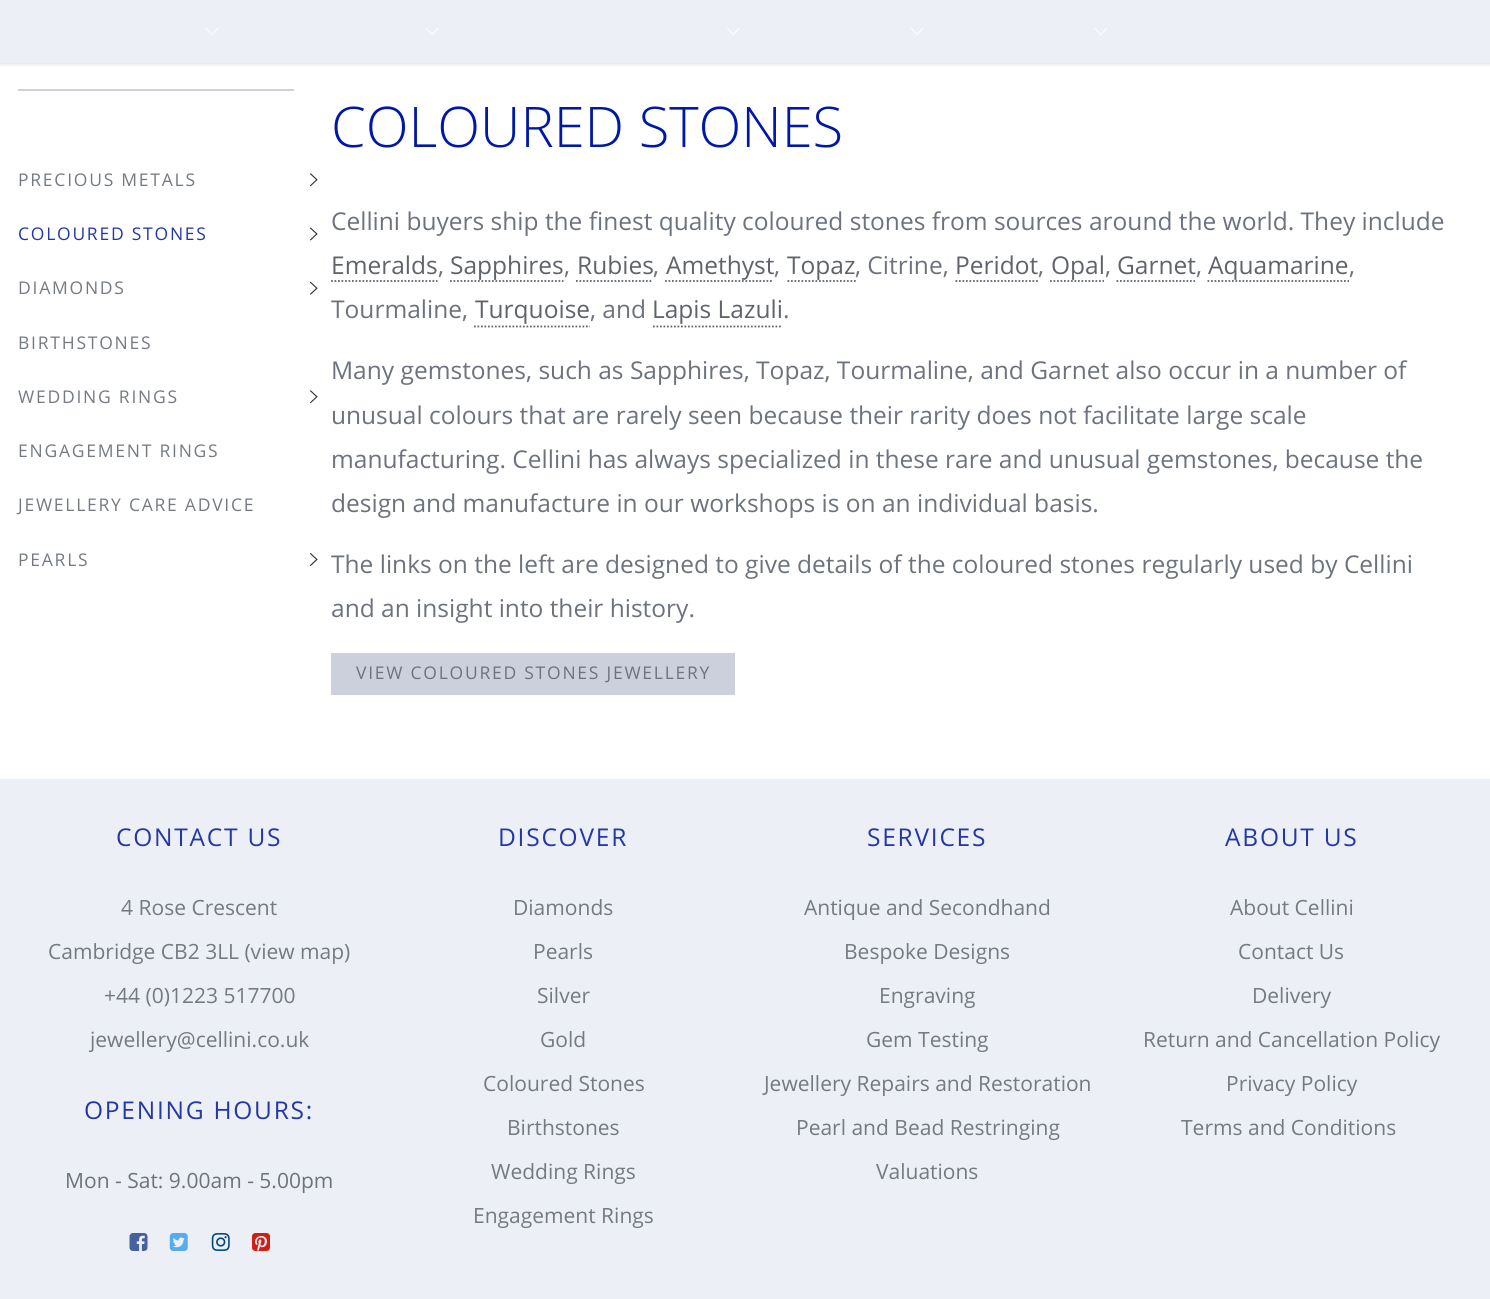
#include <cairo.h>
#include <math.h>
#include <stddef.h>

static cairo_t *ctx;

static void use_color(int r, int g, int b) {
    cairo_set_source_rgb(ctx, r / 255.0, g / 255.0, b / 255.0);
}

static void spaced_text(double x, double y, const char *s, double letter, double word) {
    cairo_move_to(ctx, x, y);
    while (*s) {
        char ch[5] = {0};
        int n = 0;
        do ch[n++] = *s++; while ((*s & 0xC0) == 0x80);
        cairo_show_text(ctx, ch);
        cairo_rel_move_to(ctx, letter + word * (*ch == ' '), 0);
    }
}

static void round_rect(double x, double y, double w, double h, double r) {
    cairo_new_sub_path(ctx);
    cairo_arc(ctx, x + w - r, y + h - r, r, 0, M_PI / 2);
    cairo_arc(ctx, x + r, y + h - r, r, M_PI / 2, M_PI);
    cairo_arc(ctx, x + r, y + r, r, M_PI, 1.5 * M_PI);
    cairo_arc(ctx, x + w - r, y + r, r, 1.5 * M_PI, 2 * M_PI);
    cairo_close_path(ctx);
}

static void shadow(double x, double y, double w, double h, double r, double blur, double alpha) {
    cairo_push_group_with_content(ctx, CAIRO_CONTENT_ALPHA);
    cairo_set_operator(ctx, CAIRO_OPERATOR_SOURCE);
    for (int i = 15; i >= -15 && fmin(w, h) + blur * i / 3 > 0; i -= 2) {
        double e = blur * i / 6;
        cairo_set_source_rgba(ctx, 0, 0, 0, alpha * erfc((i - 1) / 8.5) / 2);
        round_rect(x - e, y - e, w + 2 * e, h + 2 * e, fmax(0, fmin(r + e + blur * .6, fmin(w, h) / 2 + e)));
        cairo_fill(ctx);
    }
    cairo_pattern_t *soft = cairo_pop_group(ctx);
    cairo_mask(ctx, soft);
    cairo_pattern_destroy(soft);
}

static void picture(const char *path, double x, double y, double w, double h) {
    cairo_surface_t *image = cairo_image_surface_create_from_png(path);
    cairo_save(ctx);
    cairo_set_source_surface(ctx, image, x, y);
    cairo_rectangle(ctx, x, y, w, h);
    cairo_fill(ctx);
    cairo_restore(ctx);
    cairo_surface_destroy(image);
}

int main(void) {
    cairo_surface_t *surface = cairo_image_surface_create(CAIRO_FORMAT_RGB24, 1490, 1299);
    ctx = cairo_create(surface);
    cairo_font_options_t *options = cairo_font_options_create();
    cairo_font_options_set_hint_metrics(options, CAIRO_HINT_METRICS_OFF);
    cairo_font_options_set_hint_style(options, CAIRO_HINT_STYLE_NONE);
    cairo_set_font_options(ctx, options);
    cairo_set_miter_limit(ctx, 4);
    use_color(255, 255, 255);
    cairo_paint(ctx);
    use_color(0, 0, 0);
    shadow(0, 0, 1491, 63, 0, 2.5, 0.2);
    use_color(237, 239, 246);
    cairo_rectangle(ctx, 0, 0, 1490, 63);
    cairo_fill(ctx);
    picture("img1.png", 205, 28, 13, 7);
    picture("img2.png", 426, 28, 13, 7);
    picture("img2.png", 727, 28, 13, 7);
    picture("img3.png", 910, 28, 14, 7);
    picture("img1.png", 1094, 28, 13, 7);
    use_color(204, 208, 220);
    cairo_rectangle(ctx, 18, 89, 276, 2);
    cairo_fill(ctx);
    cairo_select_font_face(ctx, "Open Sans", CAIRO_FONT_SLANT_NORMAL, CAIRO_FONT_WEIGHT_NORMAL);
    cairo_set_font_size(ctx, 17.5);
    use_color(116, 122, 129);
    spaced_text(18, 186, "PRECIOUS METALS", 1.75, 0);
    picture("img4.png", 309, 173, 9, 14);
    use_color(36, 55, 166);
    spaced_text(18, 240, "COLOURED STONES", 1.75, 0);
    picture("img5.png", 309, 227, 9, 14);
    use_color(116, 122, 129);
    spaced_text(18, 294, "DIAMONDS", 1.75, 0);
    picture("img6.png", 309, 281, 9, 14);
    spaced_text(18, 349, "BIRTHSTONES", 1.75, 0);
    spaced_text(18, 403, "WEDDING RINGS", 1.75, 0);
    picture("img4.png", 309, 390, 9, 14);
    spaced_text(18, 457, "ENGAGEMENT RINGS", 1.75, 0);
    spaced_text(18, 511, "JEWELLERY CARE ADVICE", 1.75, 0);
    spaced_text(18, 566, "PEARLS", 1.75, 0);
    picture("img7.png", 309, 553, 9, 13);
    cairo_select_font_face(ctx, "Open Sans Light", CAIRO_FONT_SLANT_NORMAL, CAIRO_FONT_WEIGHT_NORMAL);
    cairo_set_font_size(ctx, 56);
    use_color(0, 24, 168);
    cairo_move_to(ctx, 331, 147);
    cairo_show_text(ctx, "COLOURED STONES");
    cairo_select_font_face(ctx, "Open Sans", CAIRO_FONT_SLANT_NORMAL, CAIRO_FONT_WEIGHT_NORMAL);
    cairo_set_font_size(ctx, 24.5);
    use_color(109, 115, 126);
    cairo_move_to(ctx, 331, 230);
    cairo_show_text(ctx, "Cellini buyers ship the finest quality coloured stones from sources around the world. They include");
    use_color(95, 100, 107);
    cairo_move_to(ctx, 331, 274);
    cairo_show_text(ctx, "Emeralds");
    cairo_new_path(ctx);
    cairo_move_to(ctx, 331, 281);
    cairo_line_to(ctx, 437.5, 281);
    cairo_set_line_width(ctx, 1.8);
    cairo_set_dash(ctx, (double[]){1.75, 1.75}, 2, 0);
    cairo_stroke(ctx);
    use_color(109, 115, 126);
    cairo_move_to(ctx, 438, 274);
    cairo_show_text(ctx, ",");
    use_color(95, 100, 107);
    cairo_move_to(ctx, 450, 274);
    cairo_show_text(ctx, "Sapphires");
    cairo_new_path(ctx);
    cairo_move_to(ctx, 450, 281);
    cairo_line_to(ctx, 563.5, 281);
    cairo_stroke(ctx);
    use_color(109, 115, 126);
    cairo_move_to(ctx, 564, 274);
    cairo_show_text(ctx, ",");
    use_color(95, 100, 107);
    cairo_move_to(ctx, 577, 274);
    cairo_show_text(ctx, "Rubies");
    cairo_new_path(ctx);
    cairo_move_to(ctx, 576, 281);
    cairo_line_to(ctx, 653, 281);
    cairo_stroke(ctx);
    use_color(109, 115, 126);
    cairo_move_to(ctx, 653, 274);
    cairo_show_text(ctx, ",");
    use_color(95, 100, 107);
    cairo_move_to(ctx, 666, 274);
    cairo_show_text(ctx, "Amethyst");
    cairo_new_path(ctx);
    cairo_move_to(ctx, 665, 281);
    cairo_line_to(ctx, 773.5, 281);
    cairo_stroke(ctx);
    use_color(109, 115, 126);
    cairo_move_to(ctx, 774, 274);
    cairo_show_text(ctx, ",");
    use_color(95, 100, 107);
    cairo_move_to(ctx, 787, 274);
    cairo_show_text(ctx, "Topaz");
    cairo_new_path(ctx);
    cairo_move_to(ctx, 787.5, 281);
    cairo_line_to(ctx, 856, 281);
    cairo_stroke(ctx);
    use_color(109, 115, 126);
    cairo_move_to(ctx, 855, 274);
    cairo_show_text(ctx, ", Citrine,");
    use_color(95, 100, 107);
    cairo_move_to(ctx, 955, 274);
    cairo_show_text(ctx, "Peridot");
    cairo_new_path(ctx);
    cairo_move_to(ctx, 955.5, 281);
    cairo_line_to(ctx, 1038, 281);
    cairo_stroke(ctx);
    use_color(109, 115, 126);
    cairo_move_to(ctx, 1038, 274);
    cairo_show_text(ctx, ",");
    use_color(95, 100, 107);
    cairo_move_to(ctx, 1051, 274);
    cairo_show_text(ctx, "Opal");
    cairo_new_path(ctx);
    cairo_move_to(ctx, 1050, 281);
    cairo_line_to(ctx, 1104, 281);
    cairo_stroke(ctx);
    use_color(109, 115, 126);
    cairo_move_to(ctx, 1105, 274);
    cairo_show_text(ctx, ",");
    use_color(95, 100, 107);
    cairo_move_to(ctx, 1117, 274);
    cairo_show_text(ctx, "Garnet");
    cairo_new_path(ctx);
    cairo_move_to(ctx, 1116.5, 281);
    cairo_line_to(ctx, 1195, 281);
    cairo_stroke(ctx);
    use_color(109, 115, 126);
    cairo_move_to(ctx, 1196, 274);
    cairo_show_text(ctx, ",");
    use_color(95, 100, 107);
    cairo_move_to(ctx, 1208, 274);
    cairo_show_text(ctx, "Aquamarine");
    cairo_new_path(ctx);
    cairo_move_to(ctx, 1207.5, 281);
    cairo_line_to(ctx, 1349, 281);
    cairo_stroke(ctx);
    use_color(109, 115, 126);
    cairo_move_to(ctx, 1349, 274);
    cairo_show_text(ctx, ",");
    cairo_move_to(ctx, 331, 318);
    cairo_show_text(ctx, "Tourmaline,");
    use_color(95, 100, 107);
    cairo_move_to(ctx, 475, 318);
    cairo_show_text(ctx, "Turquoise");
    cairo_new_path(ctx);
    cairo_move_to(ctx, 474, 326.5);
    cairo_line_to(ctx, 590, 326.5);
    cairo_stroke(ctx);
    use_color(109, 115, 126);
    cairo_move_to(ctx, 590, 318);
    cairo_show_text(ctx, ", and");
    use_color(95, 100, 107);
    cairo_move_to(ctx, 652, 318);
    cairo_show_text(ctx, "Lapis Lazuli");
    cairo_new_path(ctx);
    cairo_move_to(ctx, 653, 326.5);
    cairo_line_to(ctx, 782, 326.5);
    cairo_stroke(ctx);
    use_color(109, 115, 126);
    cairo_move_to(ctx, 783, 318);
    cairo_show_text(ctx, ".");
    cairo_move_to(ctx, 331, 379);
    cairo_show_text(ctx, "Many gemstones, such as Sapphires, Topaz, Tourmaline, and Garnet also occur in a number of");
    cairo_move_to(ctx, 331, 424);
    cairo_show_text(ctx, "unusual colours that are rarely seen because their rarity does not facilitate large scale");
    cairo_move_to(ctx, 331, 468);
    cairo_show_text(ctx, "manufacturing. Cellini has always specialized in these rare and unusual gemstones, because the");
    cairo_move_to(ctx, 331, 512);
    cairo_show_text(ctx, "design and manufacture in our workshops is on an individual basis.");
    cairo_move_to(ctx, 331, 573);
    cairo_show_text(ctx, "The links on the left are designed to give details of the coloured stones regularly used by Cellini");
    cairo_move_to(ctx, 331, 617);
    cairo_show_text(ctx, "and an insight into their history.");
    use_color(204, 208, 220);
    cairo_rectangle(ctx, 331, 653, 404, 42);
    cairo_fill(ctx);
    cairo_set_font_size(ctx, 17.5);
    use_color(109, 115, 126);
    spaced_text(356, 679, "VIEW COLOURED STONES JEWELLERY", 1.75, 0);
    use_color(237, 239, 246);
    cairo_rectangle(ctx, 0, 779, 1490, 520);
    cairo_fill(ctx);
    cairo_set_font_size(ctx, 24.5);
    use_color(36, 55, 166);
    spaced_text(116, 846, "CONTACT US", 1.75, 0);
    cairo_set_font_size(ctx, 21);
    use_color(116, 122, 129);
    cairo_move_to(ctx, 121, 915);
    cairo_show_text(ctx, "4 Rose Crescent");
    cairo_move_to(ctx, 48, 959);
    cairo_show_text(ctx, "Cambridge CB2 3LL (view map)");
    cairo_move_to(ctx, 104, 1003);
    cairo_show_text(ctx, "+44 (0)1223 517700");
    cairo_move_to(ctx, 90, 1047);
    cairo_show_text(ctx, "jewellery@cellini.co.uk");
    cairo_set_font_size(ctx, 24.5);
    use_color(36, 55, 166);
    spaced_text(84, 1119, "OPENING HOURS:", 1.75, 0);
    cairo_set_font_size(ctx, 21);
    use_color(109, 115, 126);
    cairo_move_to(ctx, 65, 1188);
    cairo_show_text(ctx, "Mon - Sat: 9.00am - 5.00pm");
    picture("img8.png", 129, 1233, 19, 18);
    picture("img9.png", 169, 1233, 19, 18);
    picture("img10.png", 211, 1233, 19, 18);
    picture("img11.png", 252, 1233, 18, 18);
    cairo_set_font_size(ctx, 24.5);
    use_color(36, 55, 166);
    spaced_text(498, 846, "DISCOVER", 1.75, 0);
    cairo_set_font_size(ctx, 21);
    use_color(116, 122, 129);
    cairo_move_to(ctx, 513, 915);
    cairo_show_text(ctx, "Diamonds");
    cairo_move_to(ctx, 533, 959);
    cairo_show_text(ctx, "Pearls");
    cairo_move_to(ctx, 537, 1003);
    cairo_show_text(ctx, "Silver");
    cairo_move_to(ctx, 540, 1047);
    cairo_show_text(ctx, "Gold");
    cairo_move_to(ctx, 483, 1091);
    cairo_show_text(ctx, "Coloured Stones");
    cairo_move_to(ctx, 507, 1135);
    cairo_show_text(ctx, "Birthstones");
    cairo_move_to(ctx, 491, 1179);
    cairo_show_text(ctx, "Wedding Rings");
    cairo_move_to(ctx, 473, 1223);
    cairo_show_text(ctx, "Engagement Rings");
    cairo_set_font_size(ctx, 24.5);
    use_color(36, 55, 166);
    spaced_text(867, 846, "SERVICES", 1.75, 0);
    cairo_set_font_size(ctx, 21);
    use_color(116, 122, 129);
    cairo_move_to(ctx, 804, 915);
    cairo_show_text(ctx, "Antique and Secondhand");
    cairo_move_to(ctx, 844, 959);
    cairo_show_text(ctx, "Bespoke Designs");
    cairo_move_to(ctx, 879, 1003);
    cairo_show_text(ctx, "Engraving");
    cairo_move_to(ctx, 866, 1047);
    cairo_show_text(ctx, "Gem Testing");
    cairo_move_to(ctx, 764, 1091);
    cairo_show_text(ctx, "Jewellery Repairs and Restoration");
    cairo_move_to(ctx, 796, 1135);
    cairo_show_text(ctx, "Pearl and Bead Restringing");
    cairo_move_to(ctx, 876, 1179);
    cairo_show_text(ctx, "Valuations");
    cairo_set_font_size(ctx, 24.5);
    use_color(36, 55, 166);
    spaced_text(1225, 846, "ABOUT US", 1.75, 0);
    cairo_set_font_size(ctx, 21);
    use_color(116, 122, 129);
    cairo_move_to(ctx, 1230, 915);
    cairo_show_text(ctx, "About Cellini");
    cairo_move_to(ctx, 1238, 959);
    cairo_show_text(ctx, "Contact Us");
    cairo_move_to(ctx, 1252, 1003);
    cairo_show_text(ctx, "Delivery");
    cairo_move_to(ctx, 1143, 1047);
    cairo_show_text(ctx, "Return and Cancellation Policy");
    cairo_move_to(ctx, 1226, 1091);
    cairo_show_text(ctx, "Privacy Policy");
    cairo_move_to(ctx, 1181, 1135);
    cairo_show_text(ctx, "Terms and Conditions");
    cairo_surface_write_to_png(surface, "result.png");
    cairo_font_options_destroy(options);
    cairo_destroy(ctx);
    cairo_surface_destroy(surface);
    return 0;
}
